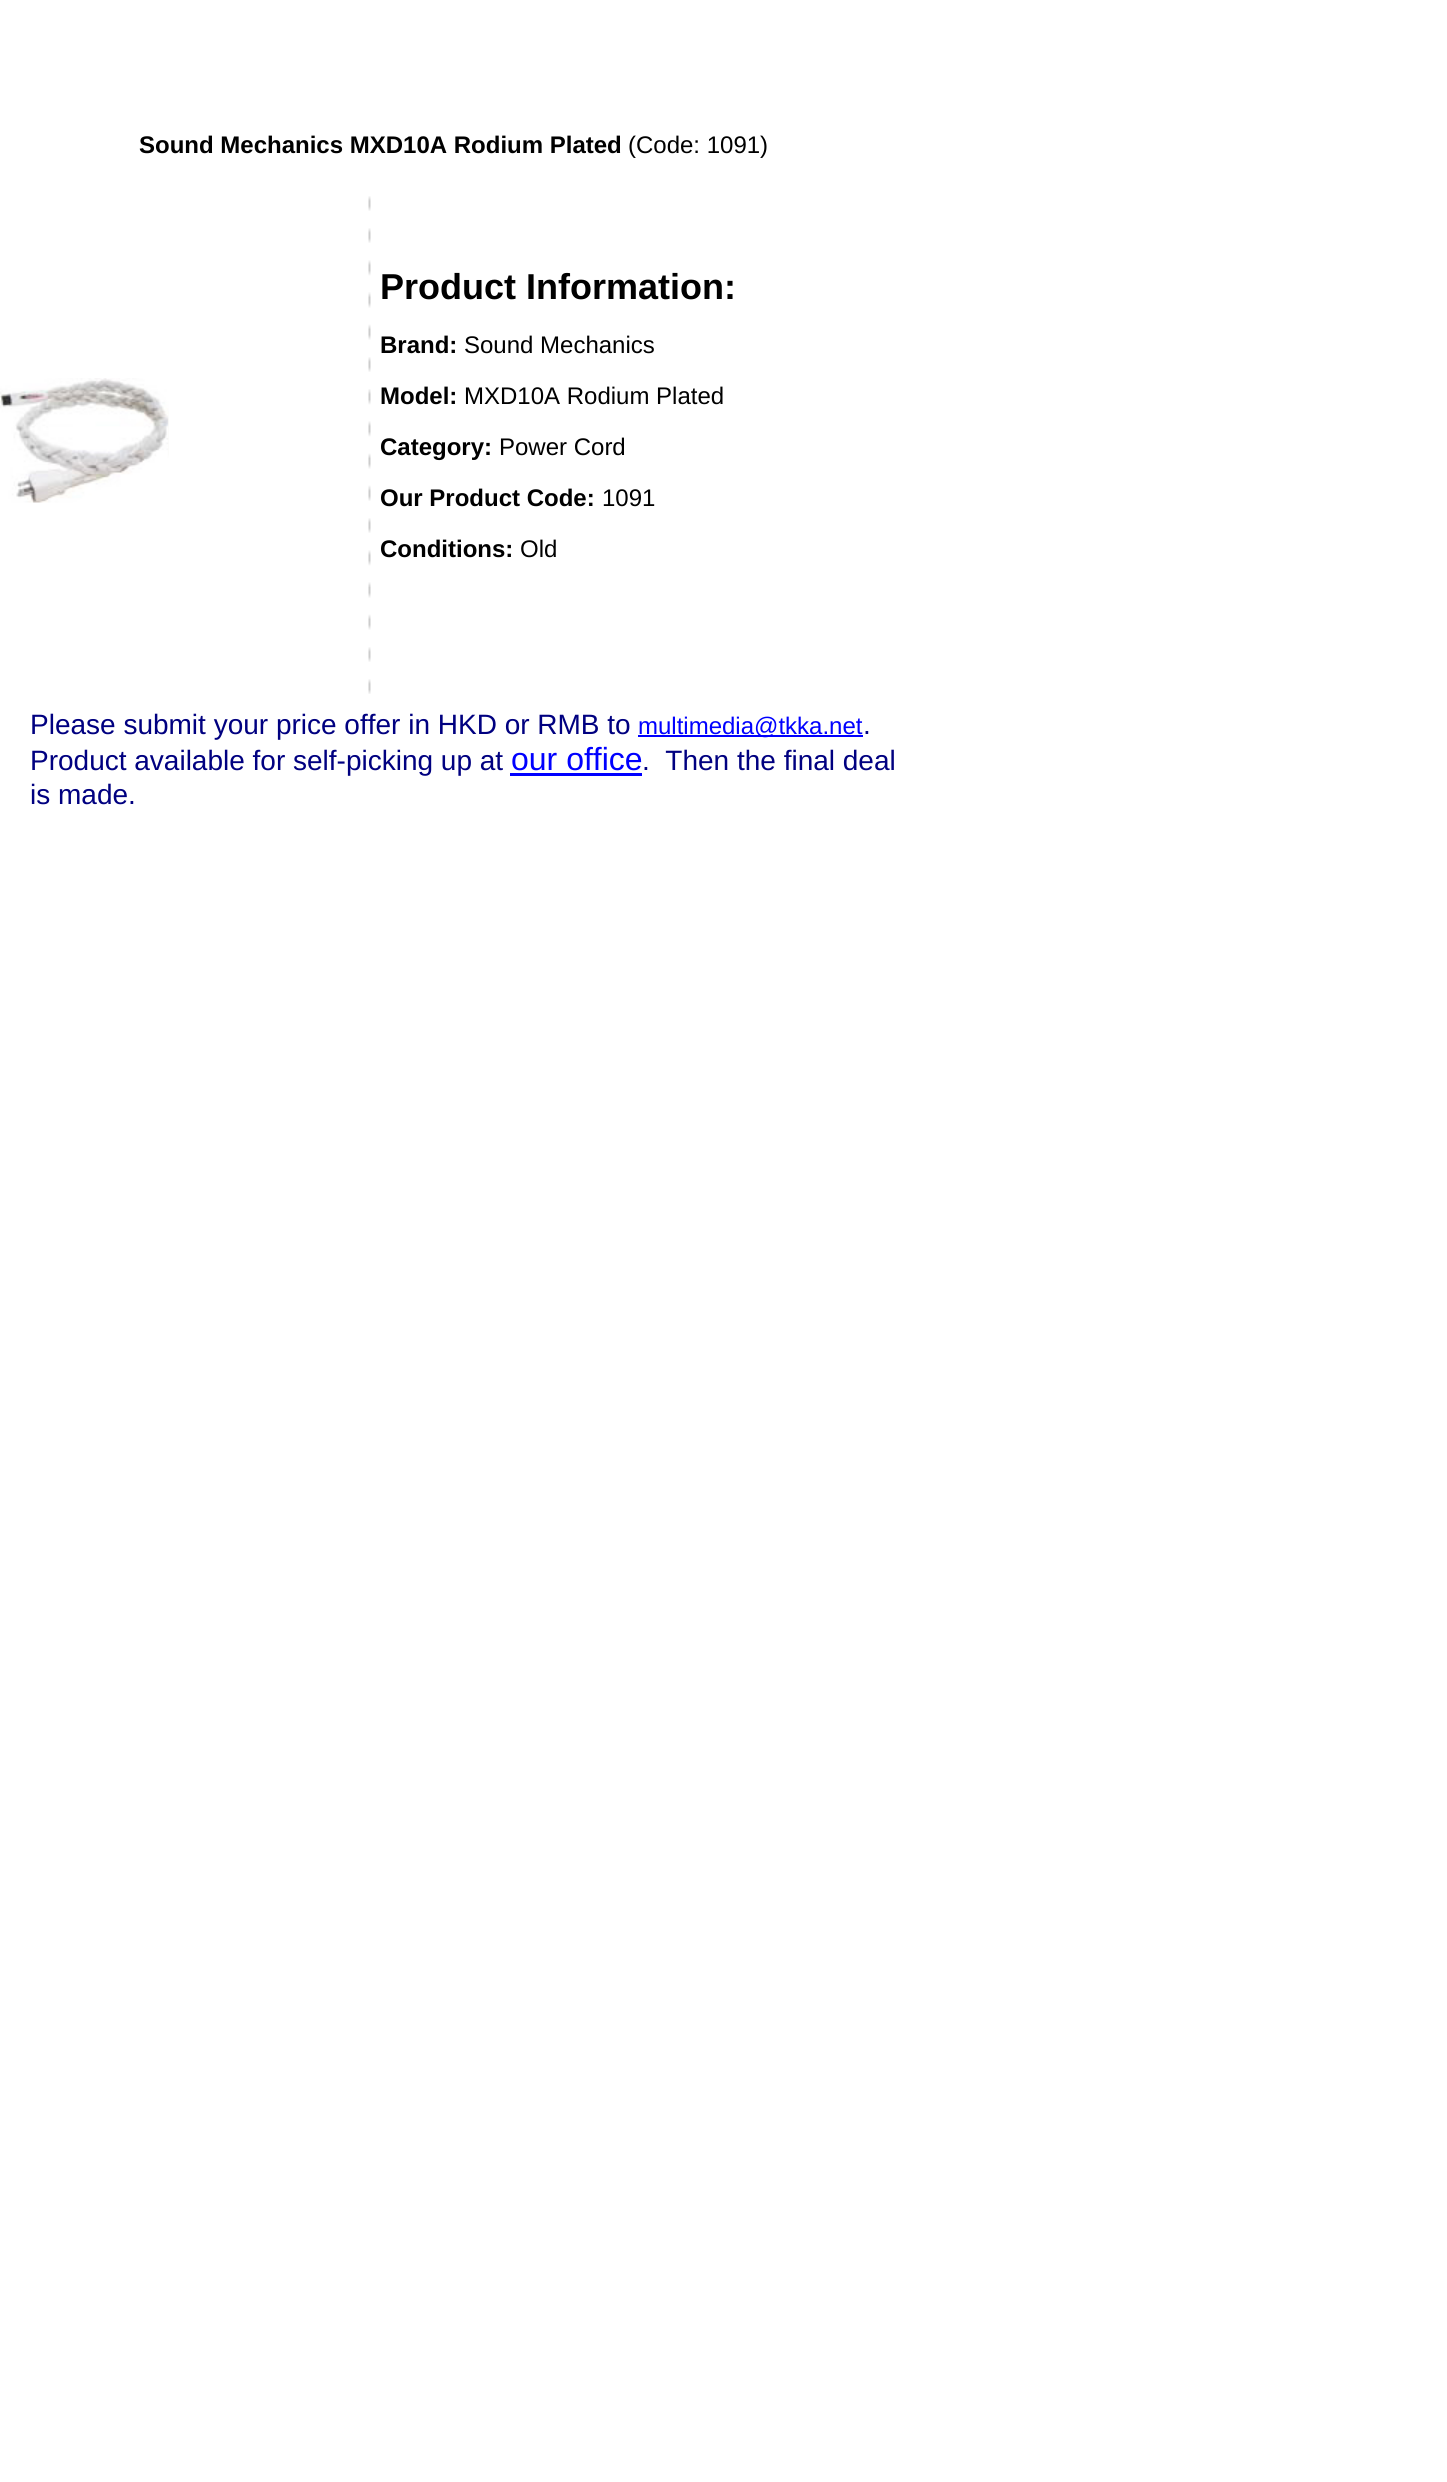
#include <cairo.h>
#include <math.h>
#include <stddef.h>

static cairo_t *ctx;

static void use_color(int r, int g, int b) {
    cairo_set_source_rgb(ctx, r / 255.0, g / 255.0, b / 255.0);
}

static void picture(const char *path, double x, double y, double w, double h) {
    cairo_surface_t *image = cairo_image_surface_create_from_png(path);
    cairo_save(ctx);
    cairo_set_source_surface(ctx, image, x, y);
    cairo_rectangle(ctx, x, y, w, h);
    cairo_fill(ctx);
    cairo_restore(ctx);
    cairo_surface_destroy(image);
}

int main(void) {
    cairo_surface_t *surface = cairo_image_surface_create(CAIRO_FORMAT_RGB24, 1447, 2482);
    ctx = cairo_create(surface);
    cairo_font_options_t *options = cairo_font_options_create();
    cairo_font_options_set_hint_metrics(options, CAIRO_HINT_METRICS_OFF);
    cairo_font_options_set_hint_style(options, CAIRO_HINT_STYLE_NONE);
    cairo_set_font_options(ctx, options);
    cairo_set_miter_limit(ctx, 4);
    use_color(255, 255, 255);
    cairo_paint(ctx);
    cairo_select_font_face(ctx, "Liberation Sans", CAIRO_FONT_SLANT_NORMAL, CAIRO_FONT_WEIGHT_BOLD);
    cairo_set_font_size(ctx, 24);
    use_color(0, 0, 0);
    cairo_move_to(ctx, 139, 153);
    cairo_show_text(ctx, "Sound Mechanics MXD10A Rodium Plated");
    cairo_select_font_face(ctx, "Liberation Sans", CAIRO_FONT_SLANT_NORMAL, CAIRO_FONT_WEIGHT_NORMAL);
    cairo_move_to(ctx, 628, 153);
    cairo_show_text(ctx, "(Code: 1091)");
    picture("img1.png", 0, 378, 169, 125);
    picture("img2.png", 368, 196, 3, 498);
    cairo_select_font_face(ctx, "Liberation Sans", CAIRO_FONT_SLANT_NORMAL, CAIRO_FONT_WEIGHT_BOLD);
    cairo_set_font_size(ctx, 36);
    cairo_move_to(ctx, 380, 299);
    cairo_show_text(ctx, "Product Information:");
    cairo_set_font_size(ctx, 24);
    cairo_move_to(ctx, 380, 353);
    cairo_show_text(ctx, "Brand:");
    cairo_select_font_face(ctx, "Liberation Sans", CAIRO_FONT_SLANT_NORMAL, CAIRO_FONT_WEIGHT_NORMAL);
    cairo_move_to(ctx, 464, 353);
    cairo_show_text(ctx, "Sound Mechanics");
    cairo_select_font_face(ctx, "Liberation Sans", CAIRO_FONT_SLANT_NORMAL, CAIRO_FONT_WEIGHT_BOLD);
    cairo_move_to(ctx, 380, 404);
    cairo_show_text(ctx, "Model:");
    cairo_select_font_face(ctx, "Liberation Sans", CAIRO_FONT_SLANT_NORMAL, CAIRO_FONT_WEIGHT_NORMAL);
    cairo_move_to(ctx, 464, 404);
    cairo_show_text(ctx, "MXD10A Rodium Plated");
    cairo_select_font_face(ctx, "Liberation Sans", CAIRO_FONT_SLANT_NORMAL, CAIRO_FONT_WEIGHT_BOLD);
    cairo_move_to(ctx, 380, 455);
    cairo_show_text(ctx, "Category:");
    cairo_select_font_face(ctx, "Liberation Sans", CAIRO_FONT_SLANT_NORMAL, CAIRO_FONT_WEIGHT_NORMAL);
    cairo_move_to(ctx, 499, 455);
    cairo_show_text(ctx, "Power Cord");
    cairo_select_font_face(ctx, "Liberation Sans", CAIRO_FONT_SLANT_NORMAL, CAIRO_FONT_WEIGHT_BOLD);
    cairo_move_to(ctx, 380, 506);
    cairo_show_text(ctx, "Our Product Code:");
    cairo_select_font_face(ctx, "Liberation Sans", CAIRO_FONT_SLANT_NORMAL, CAIRO_FONT_WEIGHT_NORMAL);
    cairo_move_to(ctx, 602, 506);
    cairo_show_text(ctx, "1091");
    cairo_select_font_face(ctx, "Liberation Sans", CAIRO_FONT_SLANT_NORMAL, CAIRO_FONT_WEIGHT_BOLD);
    cairo_move_to(ctx, 380, 557);
    cairo_show_text(ctx, "Conditions:");
    cairo_select_font_face(ctx, "Liberation Sans", CAIRO_FONT_SLANT_NORMAL, CAIRO_FONT_WEIGHT_NORMAL);
    cairo_move_to(ctx, 520, 557);
    cairo_show_text(ctx, "Old");
    cairo_set_font_size(ctx, 28);
    use_color(0, 0, 128);
    cairo_move_to(ctx, 30, 734);
    cairo_show_text(ctx, "Please submit your price offer in HKD or RMB to");
    use_color(0, 0, 255);
    cairo_rectangle(ctx, 638, 735, 225, 2);
    cairo_fill(ctx);
    cairo_set_font_size(ctx, 24);
    cairo_move_to(ctx, 638, 734);
    cairo_show_text(ctx, "multimedia@tkka.net");
    cairo_set_font_size(ctx, 28);
    use_color(0, 0, 128);
    cairo_move_to(ctx, 863, 734);
    cairo_show_text(ctx, ".");
    cairo_move_to(ctx, 30, 770);
    cairo_show_text(ctx, "Product available for self-picking up at");
    cairo_set_font_size(ctx, 32);
    use_color(0, 0, 255);
    cairo_move_to(ctx, 511, 770);
    cairo_show_text(ctx, "our office");
    cairo_rectangle(ctx, 510, 773, 132, 3);
    cairo_fill(ctx);
    cairo_set_font_size(ctx, 28);
    use_color(0, 0, 128);
    cairo_move_to(ctx, 642, 770);
    cairo_show_text(ctx, ".  Then the final deal");
    cairo_move_to(ctx, 30, 804);
    cairo_show_text(ctx, "is made.");
    cairo_surface_write_to_png(surface, "result.png");
    cairo_font_options_destroy(options);
    cairo_destroy(ctx);
    cairo_surface_destroy(surface);
    return 0;
}
